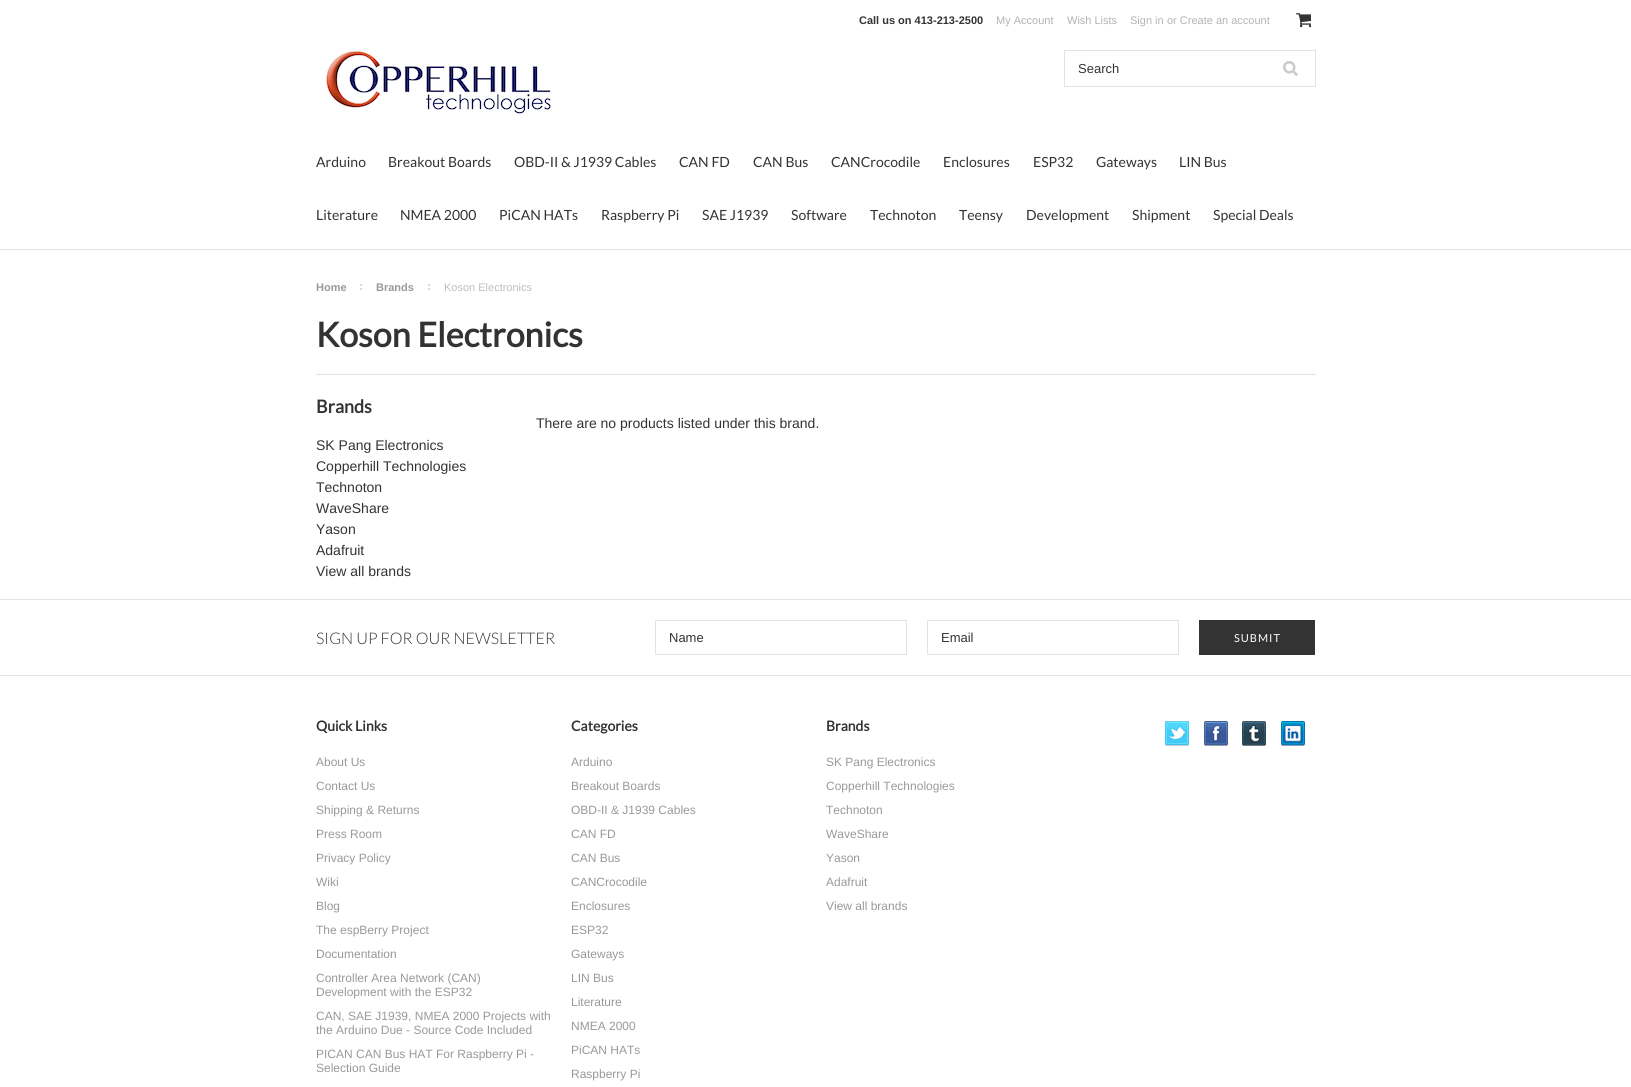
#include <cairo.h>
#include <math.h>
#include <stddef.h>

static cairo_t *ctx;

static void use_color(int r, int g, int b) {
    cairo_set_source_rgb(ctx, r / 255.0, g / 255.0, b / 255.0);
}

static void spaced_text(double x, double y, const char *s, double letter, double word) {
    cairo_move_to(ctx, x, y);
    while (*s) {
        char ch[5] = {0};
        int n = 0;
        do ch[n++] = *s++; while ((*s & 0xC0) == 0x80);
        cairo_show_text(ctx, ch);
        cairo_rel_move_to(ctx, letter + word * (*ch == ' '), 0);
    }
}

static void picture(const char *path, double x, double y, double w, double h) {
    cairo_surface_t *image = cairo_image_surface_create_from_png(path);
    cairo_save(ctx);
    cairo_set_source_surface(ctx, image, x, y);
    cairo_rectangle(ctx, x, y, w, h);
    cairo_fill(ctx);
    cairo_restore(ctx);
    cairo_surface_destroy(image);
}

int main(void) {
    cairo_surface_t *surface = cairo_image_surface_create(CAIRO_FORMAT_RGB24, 1631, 1087);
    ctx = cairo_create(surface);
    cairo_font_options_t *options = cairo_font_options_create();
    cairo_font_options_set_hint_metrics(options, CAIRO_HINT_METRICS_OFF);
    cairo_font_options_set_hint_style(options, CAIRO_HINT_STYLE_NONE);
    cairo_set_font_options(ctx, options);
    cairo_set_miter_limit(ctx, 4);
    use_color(255, 255, 255);
    cairo_paint(ctx);
    use_color(227, 227, 227);
    cairo_rectangle(ctx, 0, 249, 1631, 1);
    cairo_fill(ctx);
    cairo_select_font_face(ctx, "Liberation Sans", CAIRO_FONT_SLANT_NORMAL, CAIRO_FONT_WEIGHT_BOLD);
    cairo_set_font_size(ctx, 11);
    use_color(51, 51, 51);
    cairo_move_to(ctx, 859, 24);
    cairo_show_text(ctx, "Call us on 413-213-2500");
    cairo_select_font_face(ctx, "Liberation Sans", CAIRO_FONT_SLANT_NORMAL, CAIRO_FONT_WEIGHT_NORMAL);
    use_color(179, 179, 179);
    cairo_move_to(ctx, 996, 24);
    cairo_show_text(ctx, "My Account");
    cairo_move_to(ctx, 1067, 24);
    cairo_show_text(ctx, "Wish Lists");
    cairo_move_to(ctx, 1130, 24);
    cairo_show_text(ctx, "Sign in");
    cairo_move_to(ctx, 1167, 24);
    cairo_show_text(ctx, "or Create an account");
    picture("img1.png", 1296, 13, 15, 15);
    picture("img2.png", 326, 51, 225, 63);
    cairo_rectangle(ctx, 1064.5, 50.5, 251, 36);
    use_color(227, 227, 227);
    cairo_set_line_width(ctx, 1);
    cairo_stroke(ctx);
    cairo_set_font_size(ctx, 13);
    use_color(51, 51, 51);
    cairo_move_to(ctx, 1078, 73);
    cairo_show_text(ctx, "Search");
    picture("img3.png", 1283, 61, 15, 15);
    cairo_select_font_face(ctx, "Lato", CAIRO_FONT_SLANT_NORMAL, CAIRO_FONT_WEIGHT_NORMAL);
    cairo_set_font_size(ctx, 14);
    cairo_move_to(ctx, 316, 167);
    cairo_show_text(ctx, "Arduino");
    cairo_move_to(ctx, 388, 167);
    cairo_show_text(ctx, "Breakout Boards");
    cairo_move_to(ctx, 514, 167);
    cairo_show_text(ctx, "OBD-II & J1939 Cables");
    cairo_move_to(ctx, 679, 167);
    cairo_show_text(ctx, "CAN FD");
    cairo_move_to(ctx, 753, 167);
    cairo_show_text(ctx, "CAN Bus");
    cairo_move_to(ctx, 831, 167);
    cairo_show_text(ctx, "CANCrocodile");
    cairo_move_to(ctx, 943, 167);
    cairo_show_text(ctx, "Enclosures");
    cairo_move_to(ctx, 1033, 167);
    cairo_show_text(ctx, "ESP32");
    cairo_move_to(ctx, 1096, 167);
    cairo_show_text(ctx, "Gateways");
    cairo_move_to(ctx, 1179, 167);
    cairo_show_text(ctx, "LIN Bus");
    cairo_move_to(ctx, 316, 220);
    cairo_show_text(ctx, "Literature");
    cairo_move_to(ctx, 400, 220);
    cairo_show_text(ctx, "NMEA 2000");
    cairo_move_to(ctx, 499, 220);
    cairo_show_text(ctx, "PiCAN HATs");
    cairo_move_to(ctx, 601, 220);
    cairo_show_text(ctx, "Raspberry Pi");
    cairo_move_to(ctx, 702, 220);
    cairo_show_text(ctx, "SAE J1939");
    cairo_move_to(ctx, 791, 220);
    cairo_show_text(ctx, "Software");
    cairo_move_to(ctx, 870, 220);
    cairo_show_text(ctx, "Technoton");
    cairo_move_to(ctx, 959, 220);
    cairo_show_text(ctx, "Teensy");
    cairo_move_to(ctx, 1026, 220);
    cairo_show_text(ctx, "Development");
    cairo_move_to(ctx, 1132, 220);
    cairo_show_text(ctx, "Shipment");
    cairo_move_to(ctx, 1213, 220);
    cairo_show_text(ctx, "Special Deals");
    picture("img4.png", 360, 284, 2, 6);
    cairo_select_font_face(ctx, "Liberation Sans", CAIRO_FONT_SLANT_NORMAL, CAIRO_FONT_WEIGHT_BOLD);
    cairo_set_font_size(ctx, 11);
    use_color(153, 153, 153);
    cairo_move_to(ctx, 316, 291);
    cairo_show_text(ctx, "Home");
    picture("img4.png", 428, 284, 2, 6);
    cairo_move_to(ctx, 376, 291);
    cairo_show_text(ctx, "Brands");
    cairo_select_font_face(ctx, "Liberation Sans", CAIRO_FONT_SLANT_NORMAL, CAIRO_FONT_WEIGHT_NORMAL);
    use_color(190, 190, 190);
    cairo_move_to(ctx, 444, 291);
    cairo_show_text(ctx, "Koson Electronics");
    use_color(227, 227, 227);
    cairo_rectangle(ctx, 316, 374, 1000, 1);
    cairo_fill(ctx);
    cairo_select_font_face(ctx, "Lato", CAIRO_FONT_SLANT_NORMAL, CAIRO_FONT_WEIGHT_BOLD);
    cairo_set_font_size(ctx, 34);
    use_color(51, 51, 51);
    cairo_move_to(ctx, 316, 347);
    cairo_show_text(ctx, "Koson Electronics");
    cairo_set_font_size(ctx, 18);
    cairo_move_to(ctx, 316, 413);
    cairo_show_text(ctx, "Brands");
    cairo_select_font_face(ctx, "Liberation Sans", CAIRO_FONT_SLANT_NORMAL, CAIRO_FONT_WEIGHT_NORMAL);
    cairo_set_font_size(ctx, 14);
    cairo_move_to(ctx, 316, 450);
    cairo_show_text(ctx, "SK Pang Electronics");
    cairo_move_to(ctx, 316, 471);
    cairo_show_text(ctx, "Copperhill Technologies");
    cairo_move_to(ctx, 316, 492);
    cairo_show_text(ctx, "Technoton");
    cairo_move_to(ctx, 316, 513);
    cairo_show_text(ctx, "WaveShare");
    cairo_move_to(ctx, 316, 534);
    cairo_show_text(ctx, "Yason");
    cairo_move_to(ctx, 316, 555);
    cairo_show_text(ctx, "Adafruit");
    cairo_move_to(ctx, 316, 576);
    cairo_show_text(ctx, "View all brands");
    cairo_move_to(ctx, 536, 428);
    cairo_show_text(ctx, "There are no products listed under this brand.");
    use_color(227, 227, 227);
    cairo_rectangle(ctx, 0, 599, 1631, 1);
    cairo_fill(ctx);
    cairo_rectangle(ctx, 0, 675, 1631, 1);
    cairo_fill(ctx);
    cairo_select_font_face(ctx, "Lato Light", CAIRO_FONT_SLANT_NORMAL, CAIRO_FONT_WEIGHT_NORMAL);
    cairo_set_font_size(ctx, 16);
    use_color(51, 51, 51);
    cairo_move_to(ctx, 316, 644);
    cairo_show_text(ctx, "SIGN UP FOR OUR NEWSLETTER");
    cairo_rectangle(ctx, 655.5, 620.5, 251, 34);
    use_color(227, 227, 227);
    cairo_stroke(ctx);
    cairo_select_font_face(ctx, "Liberation Sans", CAIRO_FONT_SLANT_NORMAL, CAIRO_FONT_WEIGHT_NORMAL);
    cairo_set_font_size(ctx, 13);
    use_color(51, 51, 51);
    cairo_move_to(ctx, 669, 642);
    cairo_show_text(ctx, "Name");
    cairo_rectangle(ctx, 927.5, 620.5, 251, 34);
    use_color(227, 227, 227);
    cairo_stroke(ctx);
    use_color(51, 51, 51);
    cairo_move_to(ctx, 941, 642);
    cairo_show_text(ctx, "Email");
    cairo_rectangle(ctx, 1199, 620, 116, 35);
    cairo_fill(ctx);
    cairo_select_font_face(ctx, "Lato", CAIRO_FONT_SLANT_NORMAL, CAIRO_FONT_WEIGHT_NORMAL);
    cairo_set_font_size(ctx, 11);
    use_color(255, 255, 255);
    spaced_text(1234, 642, "SUBMIT", 1, 0);
    cairo_select_font_face(ctx, "Lato", CAIRO_FONT_SLANT_NORMAL, CAIRO_FONT_WEIGHT_BOLD);
    cairo_set_font_size(ctx, 14);
    use_color(51, 51, 51);
    cairo_move_to(ctx, 316, 731);
    cairo_show_text(ctx, "Quick Links");
    cairo_select_font_face(ctx, "Liberation Sans", CAIRO_FONT_SLANT_NORMAL, CAIRO_FONT_WEIGHT_NORMAL);
    cairo_set_font_size(ctx, 12);
    use_color(153, 153, 153);
    cairo_move_to(ctx, 316, 766);
    cairo_show_text(ctx, "About Us");
    cairo_move_to(ctx, 316, 790);
    cairo_show_text(ctx, "Contact Us");
    cairo_move_to(ctx, 316, 814);
    cairo_show_text(ctx, "Shipping & Returns");
    cairo_move_to(ctx, 316, 838);
    cairo_show_text(ctx, "Press Room");
    cairo_move_to(ctx, 316, 862);
    cairo_show_text(ctx, "Privacy Policy");
    cairo_move_to(ctx, 316, 886);
    cairo_show_text(ctx, "Wiki");
    cairo_move_to(ctx, 316, 910);
    cairo_show_text(ctx, "Blog");
    cairo_move_to(ctx, 316, 934);
    cairo_show_text(ctx, "The espBerry Project");
    cairo_move_to(ctx, 316, 958);
    cairo_show_text(ctx, "Documentation");
    cairo_move_to(ctx, 316, 982);
    cairo_show_text(ctx, "Controller Area Network (CAN)");
    cairo_move_to(ctx, 316, 996);
    cairo_show_text(ctx, "Development with the ESP32");
    cairo_move_to(ctx, 316, 1020);
    cairo_show_text(ctx, "CAN, SAE J1939, NMEA 2000 Projects with");
    cairo_move_to(ctx, 316, 1034);
    cairo_show_text(ctx, "the Arduino Due - Source Code Included");
    cairo_move_to(ctx, 316, 1058);
    cairo_show_text(ctx, "PICAN CAN Bus HAT For Raspberry Pi -");
    cairo_move_to(ctx, 316, 1072);
    cairo_show_text(ctx, "Selection Guide");
    cairo_select_font_face(ctx, "Lato", CAIRO_FONT_SLANT_NORMAL, CAIRO_FONT_WEIGHT_BOLD);
    cairo_set_font_size(ctx, 14);
    use_color(51, 51, 51);
    cairo_move_to(ctx, 571, 731);
    cairo_show_text(ctx, "Categories");
    cairo_select_font_face(ctx, "Liberation Sans", CAIRO_FONT_SLANT_NORMAL, CAIRO_FONT_WEIGHT_NORMAL);
    cairo_set_font_size(ctx, 12);
    use_color(153, 153, 153);
    cairo_move_to(ctx, 571, 766);
    cairo_show_text(ctx, "Arduino");
    cairo_move_to(ctx, 571, 790);
    cairo_show_text(ctx, "Breakout Boards");
    cairo_move_to(ctx, 571, 814);
    cairo_show_text(ctx, "OBD-II & J1939 Cables");
    cairo_move_to(ctx, 571, 838);
    cairo_show_text(ctx, "CAN FD");
    cairo_move_to(ctx, 571, 862);
    cairo_show_text(ctx, "CAN Bus");
    cairo_move_to(ctx, 571, 886);
    cairo_show_text(ctx, "CANCrocodile");
    cairo_move_to(ctx, 571, 910);
    cairo_show_text(ctx, "Enclosures");
    cairo_move_to(ctx, 571, 934);
    cairo_show_text(ctx, "ESP32");
    cairo_move_to(ctx, 571, 958);
    cairo_show_text(ctx, "Gateways");
    cairo_move_to(ctx, 571, 982);
    cairo_show_text(ctx, "LIN Bus");
    cairo_move_to(ctx, 571, 1006);
    cairo_show_text(ctx, "Literature");
    cairo_move_to(ctx, 571, 1030);
    cairo_show_text(ctx, "NMEA 2000");
    cairo_move_to(ctx, 571, 1054);
    cairo_show_text(ctx, "PiCAN HATs");
    cairo_move_to(ctx, 571, 1078);
    cairo_show_text(ctx, "Raspberry Pi");
    cairo_select_font_face(ctx, "Lato", CAIRO_FONT_SLANT_NORMAL, CAIRO_FONT_WEIGHT_BOLD);
    cairo_set_font_size(ctx, 14);
    use_color(51, 51, 51);
    cairo_move_to(ctx, 826, 731);
    cairo_show_text(ctx, "Brands");
    cairo_select_font_face(ctx, "Liberation Sans", CAIRO_FONT_SLANT_NORMAL, CAIRO_FONT_WEIGHT_NORMAL);
    cairo_set_font_size(ctx, 12);
    use_color(153, 153, 153);
    cairo_move_to(ctx, 826, 766);
    cairo_show_text(ctx, "SK Pang Electronics");
    cairo_move_to(ctx, 826, 790);
    cairo_show_text(ctx, "Copperhill Technologies");
    cairo_move_to(ctx, 826, 814);
    cairo_show_text(ctx, "Technoton");
    cairo_move_to(ctx, 826, 838);
    cairo_show_text(ctx, "WaveShare");
    cairo_move_to(ctx, 826, 862);
    cairo_show_text(ctx, "Yason");
    cairo_move_to(ctx, 826, 886);
    cairo_show_text(ctx, "Adafruit");
    cairo_move_to(ctx, 826, 910);
    cairo_show_text(ctx, "View all brands");
    picture("img5.png", 1165, 721, 24, 25);
    picture("img6.png", 1204, 721, 24, 25);
    picture("img7.png", 1242, 721, 24, 25);
    picture("img8.png", 1281, 721, 24, 25);
    cairo_surface_write_to_png(surface, "result.png");
    cairo_font_options_destroy(options);
    cairo_destroy(ctx);
    cairo_surface_destroy(surface);
    return 0;
}
